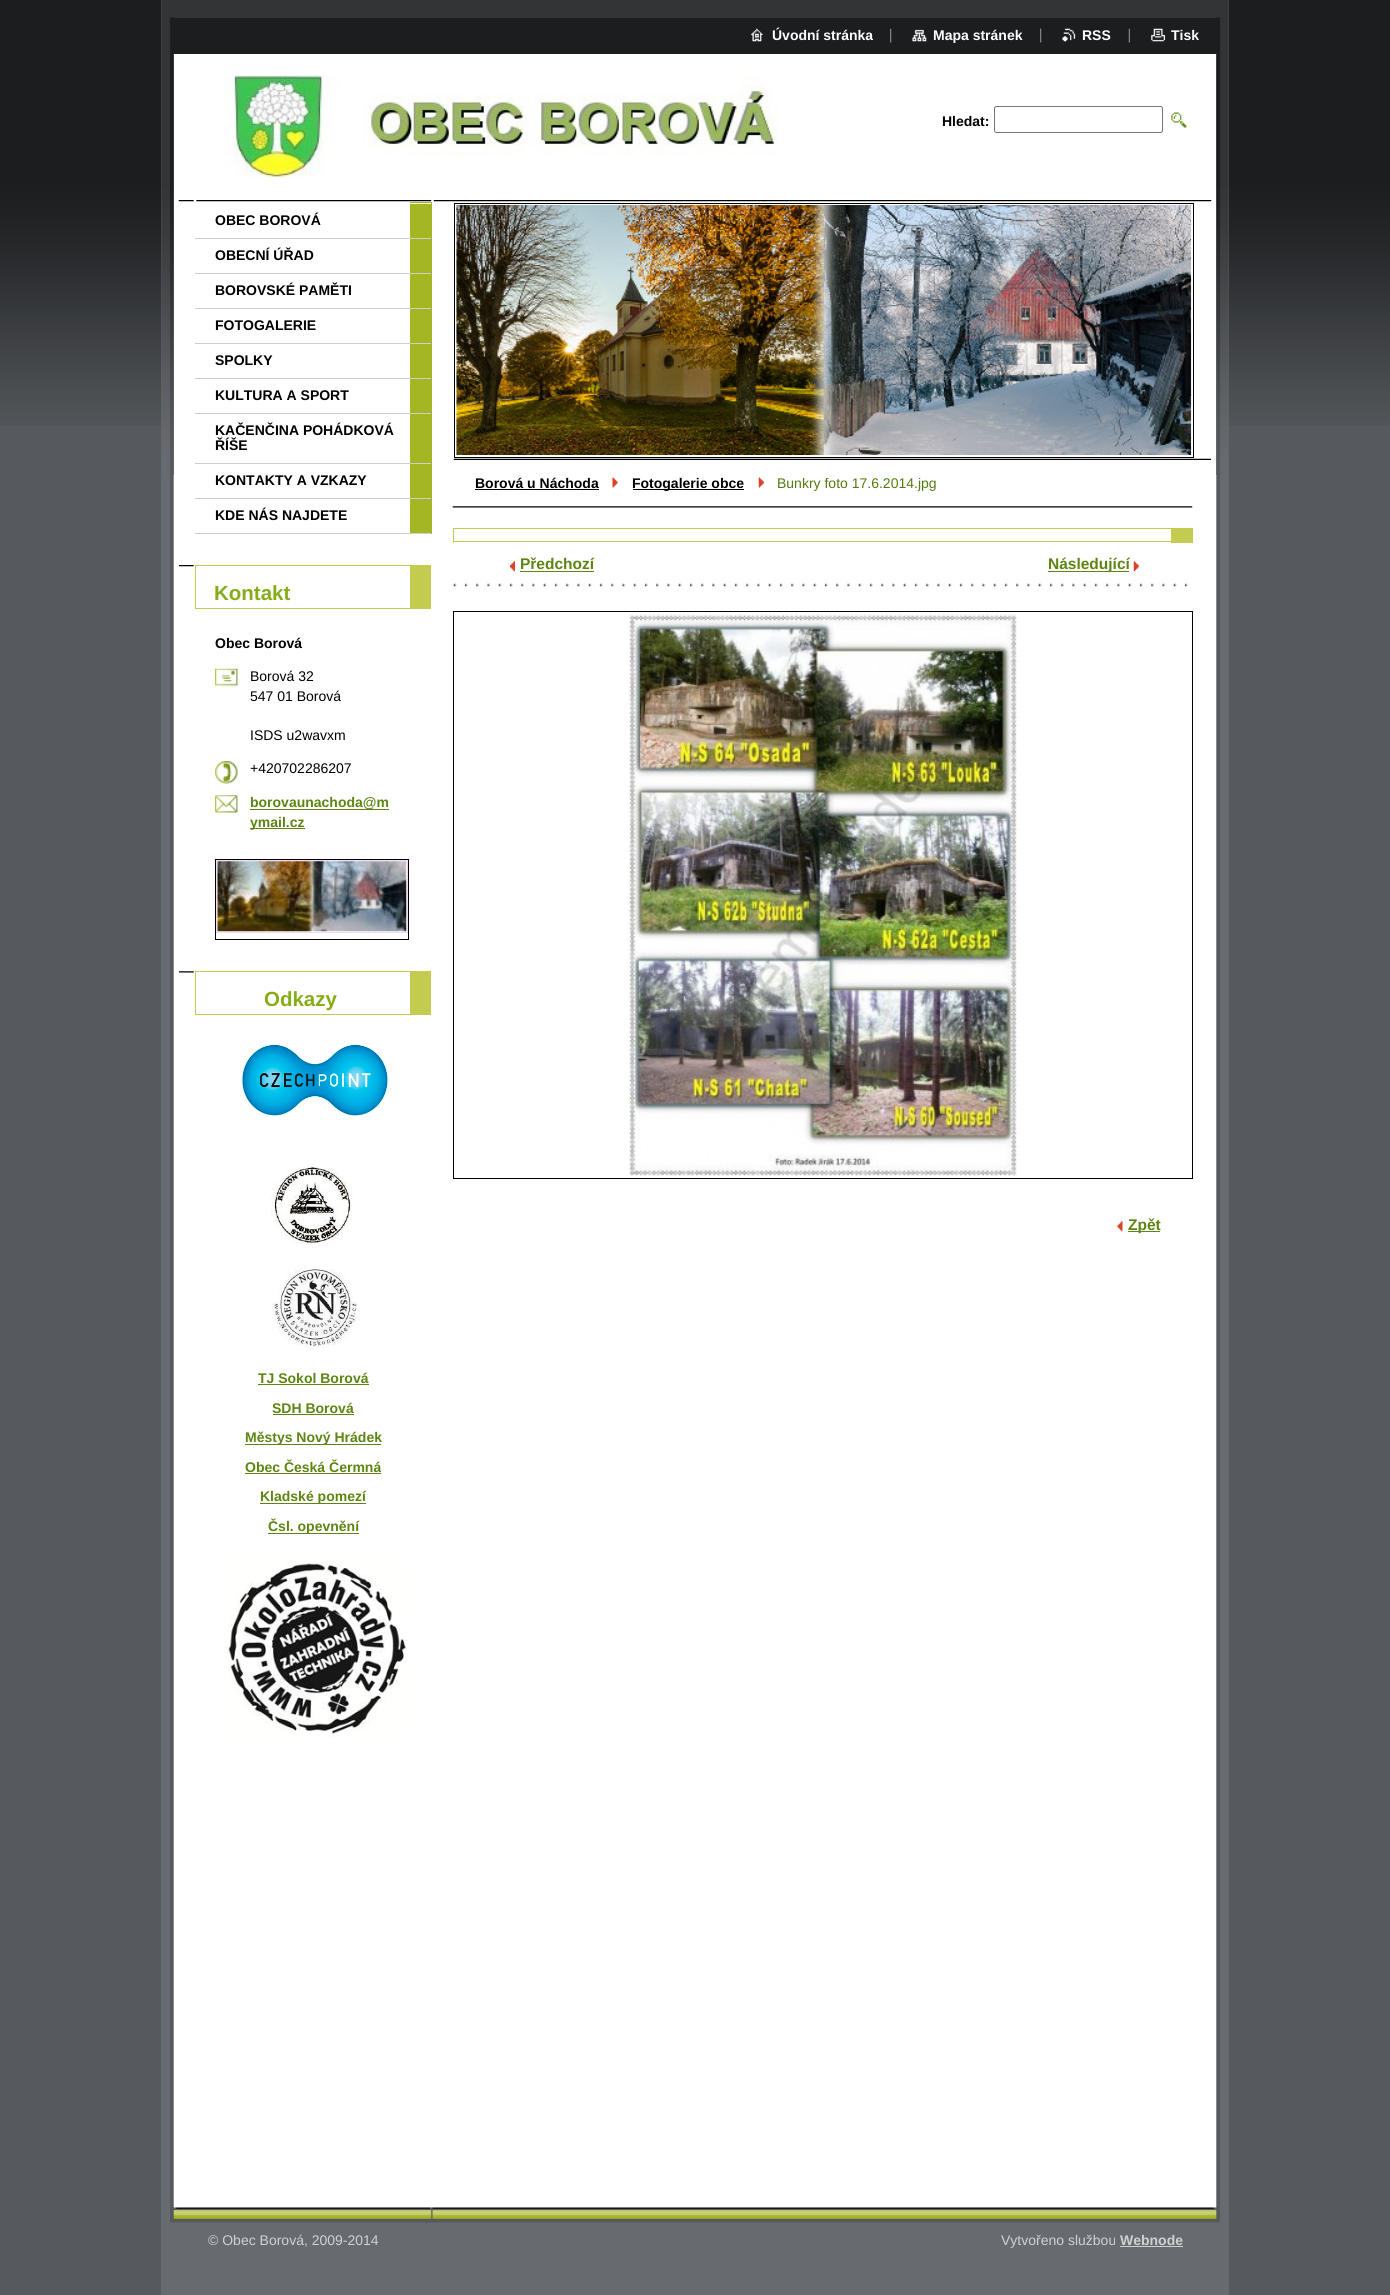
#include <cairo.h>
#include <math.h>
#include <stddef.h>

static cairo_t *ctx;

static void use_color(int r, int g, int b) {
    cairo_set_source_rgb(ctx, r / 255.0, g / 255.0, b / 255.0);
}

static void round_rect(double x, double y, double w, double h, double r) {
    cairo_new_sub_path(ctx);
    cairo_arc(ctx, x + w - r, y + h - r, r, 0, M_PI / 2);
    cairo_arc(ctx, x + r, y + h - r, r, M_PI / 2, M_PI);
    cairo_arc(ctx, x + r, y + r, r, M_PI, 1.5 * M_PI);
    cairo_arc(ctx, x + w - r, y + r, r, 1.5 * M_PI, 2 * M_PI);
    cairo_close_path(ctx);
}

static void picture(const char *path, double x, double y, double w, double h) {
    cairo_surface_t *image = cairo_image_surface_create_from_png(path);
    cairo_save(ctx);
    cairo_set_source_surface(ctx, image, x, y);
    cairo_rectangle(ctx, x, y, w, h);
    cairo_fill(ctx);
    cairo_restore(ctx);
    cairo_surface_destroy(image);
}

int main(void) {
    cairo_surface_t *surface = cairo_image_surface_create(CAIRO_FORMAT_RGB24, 1390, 2295);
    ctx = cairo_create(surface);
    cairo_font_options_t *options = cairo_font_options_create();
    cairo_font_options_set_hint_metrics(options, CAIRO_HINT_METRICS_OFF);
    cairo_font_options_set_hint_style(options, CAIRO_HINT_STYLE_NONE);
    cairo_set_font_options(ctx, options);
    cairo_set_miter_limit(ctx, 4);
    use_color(86, 89, 93);
    cairo_paint(ctx);
    picture("img1.png", 0, 0, 1390, 426);
    use_color(103, 106, 110);
    cairo_rectangle(ctx, 161, 0, 1068, 2295);
    cairo_fill(ctx);
    picture("img2.png", 170, 53, 1050, 2155);
    picture("img3.png", 161, 0, 1068, 475);
    use_color(50, 52, 54);
    cairo_rectangle(ctx, 174, 17, 1042, 1);
    cairo_fill(ctx);
    use_color(27, 29, 31);
    cairo_rectangle(ctx, 174, 53, 1042, 1);
    cairo_fill(ctx);
    picture("img4.png", 751, 28, 12, 14);
    cairo_select_font_face(ctx, "Liberation Sans", CAIRO_FONT_SLANT_NORMAL, CAIRO_FONT_WEIGHT_BOLD);
    cairo_set_font_size(ctx, 14);
    use_color(255, 255, 255);
    cairo_move_to(ctx, 772, 40);
    cairo_show_text(ctx, "Úvodní stránka");
    picture("img5.png", 890, 28, 2, 15);
    picture("img6.png", 912, 29, 15, 13);
    cairo_move_to(ctx, 933, 40);
    cairo_show_text(ctx, "Mapa stránek");
    picture("img5.png", 1040, 28, 2, 15);
    picture("img7.png", 1062, 28, 14, 14);
    cairo_move_to(ctx, 1082, 40);
    cairo_show_text(ctx, "RSS");
    picture("img8.png", 1128, 28, 2, 15);
    picture("img9.png", 1151, 28, 14, 14);
    cairo_move_to(ctx, 1171, 40);
    cairo_show_text(ctx, "Tisk");
    picture("img10.png", 224, 75, 555, 103);
    use_color(0, 0, 0);
    cairo_move_to(ctx, 942, 126);
    cairo_show_text(ctx, "Hledat:");
    round_rect(994.5, 106.5, 168, 26, 2);
    use_color(118, 118, 118);
    cairo_set_line_width(ctx, 1);
    cairo_stroke(ctx);
    picture("img11.png", 1171, 112, 16, 16);
    picture("img12.png", 178, 200, 254, 2);
    use_color(164, 182, 36);
    cairo_rectangle(ctx, 410, 202, 22, 332);
    cairo_fill(ctx);
    use_color(255, 255, 255);
    cairo_rectangle(ctx, 410, 203, 21, 1);
    cairo_fill(ctx);
    use_color(207, 207, 207);
    cairo_rectangle(ctx, 195, 238, 236, 1);
    cairo_fill(ctx);
    use_color(0, 0, 0);
    cairo_move_to(ctx, 215, 225);
    cairo_show_text(ctx, "OBEC BOROVÁ");
    use_color(207, 207, 207);
    cairo_rectangle(ctx, 195, 273, 236, 1);
    cairo_fill(ctx);
    use_color(0, 0, 0);
    cairo_move_to(ctx, 215, 260);
    cairo_show_text(ctx, "OBECNÍ ÚŘAD");
    use_color(207, 207, 207);
    cairo_rectangle(ctx, 195, 308, 236, 1);
    cairo_fill(ctx);
    use_color(0, 0, 0);
    cairo_move_to(ctx, 215, 295);
    cairo_show_text(ctx, "BOROVSKÉ PAMĚTI");
    use_color(207, 207, 207);
    cairo_rectangle(ctx, 195, 343, 236, 1);
    cairo_fill(ctx);
    use_color(0, 0, 0);
    cairo_move_to(ctx, 215, 330);
    cairo_show_text(ctx, "FOTOGALERIE");
    use_color(207, 207, 207);
    cairo_rectangle(ctx, 195, 378, 236, 1);
    cairo_fill(ctx);
    use_color(0, 0, 0);
    cairo_move_to(ctx, 215, 365);
    cairo_show_text(ctx, "SPOLKY");
    use_color(207, 207, 207);
    cairo_rectangle(ctx, 195, 413, 236, 1);
    cairo_fill(ctx);
    use_color(0, 0, 0);
    cairo_move_to(ctx, 215, 400);
    cairo_show_text(ctx, "KULTURA A SPORT");
    use_color(207, 207, 207);
    cairo_rectangle(ctx, 195, 463, 236, 1);
    cairo_fill(ctx);
    use_color(0, 0, 0);
    cairo_move_to(ctx, 215, 435);
    cairo_show_text(ctx, "KAČENČINA POHÁDKOVÁ");
    cairo_move_to(ctx, 215, 450);
    cairo_show_text(ctx, "ŘÍŠE");
    use_color(207, 207, 207);
    cairo_rectangle(ctx, 195, 498, 236, 1);
    cairo_fill(ctx);
    use_color(0, 0, 0);
    cairo_move_to(ctx, 215, 485);
    cairo_show_text(ctx, "KONTAKTY A VZKAZY");
    use_color(207, 207, 207);
    cairo_rectangle(ctx, 195, 533, 236, 1);
    cairo_fill(ctx);
    use_color(0, 0, 0);
    cairo_move_to(ctx, 215, 520);
    cairo_show_text(ctx, "KDE NÁS NAJDETE");
    picture("img13.png", 178, 565, 16, 2);
    use_color(195, 204, 78);
    cairo_rectangle(ctx, 195, 565, 215, 1);
    cairo_fill(ctx);
    cairo_rectangle(ctx, 410, 565, 21, 43);
    cairo_fill(ctx);
    cairo_rectangle(ctx, 195, 608, 236, 1);
    cairo_fill(ctx);
    cairo_rectangle(ctx, 195, 565, 1, 44);
    cairo_fill(ctx);
    cairo_set_font_size(ctx, 20.5);
    use_color(134, 173, 23);
    cairo_move_to(ctx, 214, 600);
    cairo_show_text(ctx, "Kontakt");
    cairo_set_font_size(ctx, 14);
    use_color(0, 0, 0);
    cairo_move_to(ctx, 215, 648);
    cairo_show_text(ctx, "Obec Borová");
    picture("img14.png", 215, 668, 23, 19);
    cairo_select_font_face(ctx, "Liberation Sans", CAIRO_FONT_SLANT_NORMAL, CAIRO_FONT_WEIGHT_NORMAL);
    cairo_move_to(ctx, 250, 681);
    cairo_show_text(ctx, "Borová 32");
    cairo_move_to(ctx, 250, 701);
    cairo_show_text(ctx, "547 01 Borová");
    cairo_move_to(ctx, 250, 740);
    cairo_show_text(ctx, "ISDS u2wavxm");
    picture("img15.png", 215, 761, 23, 23);
    cairo_move_to(ctx, 250, 773);
    cairo_show_text(ctx, "+420702286207");
    picture("img16.png", 215, 795, 23, 18);
    use_color(93, 133, 17);
    cairo_rectangle(ctx, 250, 809, 139, 1);
    cairo_fill(ctx);
    cairo_select_font_face(ctx, "Liberation Sans", CAIRO_FONT_SLANT_NORMAL, CAIRO_FONT_WEIGHT_BOLD);
    cairo_move_to(ctx, 250, 807);
    cairo_show_text(ctx, "borovaunachoda@m");
    cairo_rectangle(ctx, 250, 828, 55, 1);
    cairo_fill(ctx);
    cairo_move_to(ctx, 250, 827);
    cairo_show_text(ctx, "ymail.cz");
    cairo_rectangle(ctx, 215.5, 859.5, 193, 80);
    use_color(0, 0, 0);
    cairo_stroke(ctx);
    cairo_rectangle(ctx, 216.5, 860.5, 191, 72);
    use_color(244, 216, 247);
    cairo_stroke(ctx);
    picture("img17.png", 217, 861, 190, 71);
    picture("img18.png", 178, 971, 16, 2);
    use_color(195, 204, 78);
    cairo_rectangle(ctx, 195, 971, 215, 1);
    cairo_fill(ctx);
    cairo_rectangle(ctx, 410, 971, 21, 43);
    cairo_fill(ctx);
    cairo_rectangle(ctx, 195, 1014, 236, 1);
    cairo_fill(ctx);
    cairo_rectangle(ctx, 195, 971, 1, 44);
    cairo_fill(ctx);
    cairo_set_font_size(ctx, 20.5);
    use_color(134, 173, 23);
    cairo_move_to(ctx, 264, 1006);
    cairo_show_text(ctx, "Odkazy");
    picture("img19.png", 241, 1044, 147, 73);
    picture("img20.png", 271, 1167, 82, 77);
    picture("img21.png", 271, 1269, 86, 78);
    cairo_set_font_size(ctx, 14);
    use_color(93, 133, 17);
    cairo_move_to(ctx, 258, 1383);
    cairo_show_text(ctx, "TJ Sokol Borová");
    cairo_rectangle(ctx, 258, 1384, 111, 1);
    cairo_fill(ctx);
    cairo_move_to(ctx, 272, 1413);
    cairo_show_text(ctx, "SDH Borová");
    cairo_rectangle(ctx, 273, 1414, 81, 1);
    cairo_fill(ctx);
    cairo_rectangle(ctx, 245, 1444, 136, 1);
    cairo_fill(ctx);
    cairo_move_to(ctx, 245, 1442);
    cairo_show_text(ctx, "Městys Nový Hrádek");
    cairo_move_to(ctx, 245, 1472);
    cairo_show_text(ctx, "Obec Česká Čermná");
    cairo_rectangle(ctx, 245, 1473, 136, 1);
    cairo_fill(ctx);
    cairo_rectangle(ctx, 260, 1503, 106, 1);
    cairo_fill(ctx);
    cairo_move_to(ctx, 260, 1501);
    cairo_show_text(ctx, "Kladské pomezí");
    cairo_rectangle(ctx, 268, 1533, 91, 1);
    cairo_fill(ctx);
    cairo_move_to(ctx, 268, 1531);
    cairo_show_text(ctx, "Čsl. opevnění");
    picture("img22.png", 222, 1561, 185, 177);
    picture("img23.png", 433, 200, 779, 2);
    picture("img24.png", 453, 458, 759, 2);
    cairo_rectangle(ctx, 454.5, 203.5, 739, 254);
    use_color(0, 0, 0);
    cairo_stroke(ctx);
    picture("img25.png", 456, 205, 736, 250);
    picture("img26.png", 452, 506, 741, 2);
    cairo_move_to(ctx, 475, 488);
    cairo_show_text(ctx, "Borová u Náchoda");
    cairo_rectangle(ctx, 475, 489, 124, 1);
    cairo_fill(ctx);
    picture("img27.png", 612, 477, 6, 11);
    cairo_rectangle(ctx, 633, 489, 111, 1);
    cairo_fill(ctx);
    cairo_move_to(ctx, 632, 488);
    cairo_show_text(ctx, "Fotogalerie obce");
    picture("img28.png", 758, 477, 6, 11);
    cairo_select_font_face(ctx, "Liberation Sans", CAIRO_FONT_SLANT_NORMAL, CAIRO_FONT_WEIGHT_NORMAL);
    use_color(86, 122, 14);
    cairo_move_to(ctx, 777, 488);
    cairo_show_text(ctx, "Bunkry foto 17.6.2014.jpg");
    use_color(195, 204, 78);
    cairo_rectangle(ctx, 453, 528, 718, 1);
    cairo_fill(ctx);
    cairo_rectangle(ctx, 1171, 528, 22, 15);
    cairo_fill(ctx);
    cairo_rectangle(ctx, 453, 541, 718, 1);
    cairo_fill(ctx);
    cairo_rectangle(ctx, 453, 528, 1, 15);
    cairo_fill(ctx);
    picture("img29.png", 453, 583, 735, 4);
    picture("img30.png", 510, 561, 5, 11);
    cairo_select_font_face(ctx, "Liberation Sans", CAIRO_FONT_SLANT_NORMAL, CAIRO_FONT_WEIGHT_BOLD);
    cairo_set_font_size(ctx, 15.5);
    use_color(93, 133, 17);
    cairo_move_to(ctx, 520, 569);
    cairo_show_text(ctx, "Předchozí");
    cairo_rectangle(ctx, 520, 571, 74, 1);
    cairo_fill(ctx);
    cairo_rectangle(ctx, 1048, 571, 81, 1);
    cairo_fill(ctx);
    cairo_move_to(ctx, 1048, 569);
    cairo_show_text(ctx, "Následující");
    picture("img31.png", 1133, 561, 6, 11);
    cairo_rectangle(ctx, 453.5, 611.5, 739, 567);
    use_color(0, 0, 0);
    cairo_stroke(ctx);
    picture("img32.png", 628, 614, 389, 562);
    picture("img33.png", 1117, 1221, 6, 11);
    use_color(93, 133, 17);
    cairo_rectangle(ctx, 1128, 1231, 32, 1);
    cairo_fill(ctx);
    cairo_move_to(ctx, 1128, 1230);
    cairo_show_text(ctx, "Zpět");
    picture("img34.png", 170, 2207, 1050, 16);
    cairo_save(ctx);
    cairo_rectangle(ctx, 208, 2233, 600, 17);
    cairo_clip(ctx);
    cairo_select_font_face(ctx, "Liberation Sans", CAIRO_FONT_SLANT_NORMAL, CAIRO_FONT_WEIGHT_NORMAL);
    cairo_set_font_size(ctx, 14);
    use_color(209, 209, 209);
    cairo_move_to(ctx, 208, 2245);
    cairo_show_text(ctx, "© Obec Borová, 2009-2014");
    cairo_restore(ctx);
    cairo_select_font_face(ctx, "Liberation Sans", CAIRO_FONT_SLANT_NORMAL, CAIRO_FONT_WEIGHT_NORMAL);
    cairo_set_font_size(ctx, 14);
    use_color(209, 209, 209);
    cairo_move_to(ctx, 1001, 2245);
    cairo_show_text(ctx, "Vytvořeno službou");
    cairo_select_font_face(ctx, "Liberation Sans", CAIRO_FONT_SLANT_NORMAL, CAIRO_FONT_WEIGHT_BOLD);
    cairo_move_to(ctx, 1120, 2245);
    cairo_show_text(ctx, "Webnode");
    cairo_rectangle(ctx, 1120, 2246, 63, 1);
    cairo_fill(ctx);
    cairo_surface_write_to_png(surface, "result.png");
    cairo_font_options_destroy(options);
    cairo_destroy(ctx);
    cairo_surface_destroy(surface);
    return 0;
}
